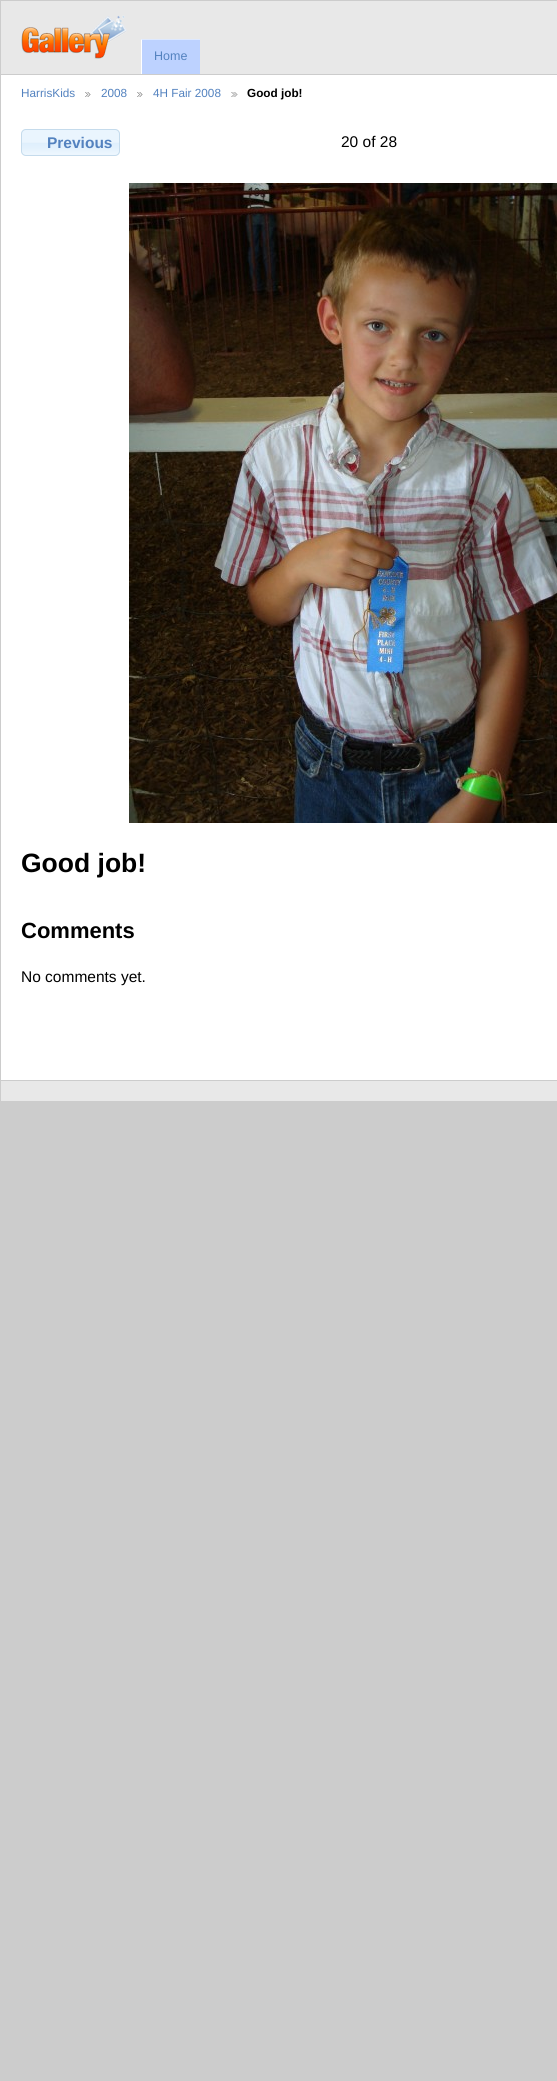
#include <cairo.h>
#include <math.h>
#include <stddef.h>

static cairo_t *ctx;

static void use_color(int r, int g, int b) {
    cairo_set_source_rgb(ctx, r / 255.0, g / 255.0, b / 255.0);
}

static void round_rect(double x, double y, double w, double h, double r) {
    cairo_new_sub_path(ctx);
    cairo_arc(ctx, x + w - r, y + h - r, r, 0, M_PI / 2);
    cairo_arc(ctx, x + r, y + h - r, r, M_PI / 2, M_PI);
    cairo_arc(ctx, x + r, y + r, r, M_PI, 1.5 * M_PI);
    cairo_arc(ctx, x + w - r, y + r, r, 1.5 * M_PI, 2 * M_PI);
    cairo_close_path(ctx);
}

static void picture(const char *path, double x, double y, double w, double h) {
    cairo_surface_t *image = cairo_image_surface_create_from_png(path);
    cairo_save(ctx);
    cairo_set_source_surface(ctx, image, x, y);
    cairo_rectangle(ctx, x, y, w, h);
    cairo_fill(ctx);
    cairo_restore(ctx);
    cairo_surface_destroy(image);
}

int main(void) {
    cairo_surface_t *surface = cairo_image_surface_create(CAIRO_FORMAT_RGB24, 557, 2081);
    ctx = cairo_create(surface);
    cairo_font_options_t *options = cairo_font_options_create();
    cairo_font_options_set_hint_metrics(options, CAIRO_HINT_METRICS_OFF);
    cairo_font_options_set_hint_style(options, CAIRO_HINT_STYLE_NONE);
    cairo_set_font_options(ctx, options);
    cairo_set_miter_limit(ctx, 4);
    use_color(204, 204, 204);
    cairo_paint(ctx);
    use_color(255, 255, 255);
    cairo_rectangle(ctx, 1, 75, 556, 1005);
    cairo_fill(ctx);
    use_color(232, 232, 232);
    cairo_rectangle(ctx, 1, 1, 556, 73);
    cairo_fill(ctx);
    picture("img1.png", 21, 15, 106, 44);
    use_color(189, 210, 255);
    cairo_rectangle(ctx, 141, 39, 59, 35);
    cairo_fill(ctx);
    use_color(222, 233, 255);
    cairo_new_path(ctx);
    cairo_move_to(ctx, 141, 39);
    cairo_line_to(ctx, 200, 39);
    cairo_line_to(ctx, 200, 40);
    cairo_line_to(ctx, 142, 40);
    cairo_close_path(ctx);
    cairo_fill(ctx);
    use_color(255, 255, 255);
    cairo_new_path(ctx);
    cairo_move_to(ctx, 141, 74);
    cairo_line_to(ctx, 141, 39);
    cairo_line_to(ctx, 142, 40);
    cairo_line_to(ctx, 142, 74);
    cairo_close_path(ctx);
    cairo_fill(ctx);
    cairo_select_font_face(ctx, "Liberation Sans", CAIRO_FONT_SLANT_NORMAL, CAIRO_FONT_WEIGHT_NORMAL);
    cairo_set_font_size(ctx, 12.5);
    use_color(83, 130, 191);
    cairo_move_to(ctx, 154, 60);
    cairo_show_text(ctx, "Home");
    cairo_set_font_size(ctx, 11.75);
    cairo_move_to(ctx, 21, 97);
    cairo_show_text(ctx, "HarrisKids");
    picture("img2.png", 85, 92, 6, 5);
    cairo_move_to(ctx, 101, 97);
    cairo_show_text(ctx, "2008");
    picture("img2.png", 137, 92, 6, 5);
    cairo_move_to(ctx, 153, 97);
    cairo_show_text(ctx, "4H Fair 2008");
    picture("img3.png", 231, 92, 7, 5);
    cairo_select_font_face(ctx, "Liberation Sans", CAIRO_FONT_SLANT_NORMAL, CAIRO_FONT_WEIGHT_BOLD);
    use_color(0, 0, 0);
    cairo_move_to(ctx, 247, 97);
    cairo_show_text(ctx, "Good job!");
    picture("img4.png", 21, 129, 99, 27);
    round_rect(21.5, 129.5, 98, 26, 4.5);
    use_color(197, 219, 236);
    cairo_set_line_width(ctx, 1);
    cairo_stroke(ctx);
    cairo_set_font_size(ctx, 15.5);
    use_color(83, 130, 191);
    cairo_move_to(ctx, 47, 148);
    cairo_show_text(ctx, "Previous");
    cairo_select_font_face(ctx, "Liberation Sans", CAIRO_FONT_SLANT_NORMAL, CAIRO_FONT_WEIGHT_NORMAL);
    use_color(0, 0, 0);
    cairo_move_to(ctx, 341, 147);
    cairo_show_text(ctx, "20 of 28");
    picture("img5.png", 129, 183, 428, 640);
    cairo_select_font_face(ctx, "Liberation Sans", CAIRO_FONT_SLANT_NORMAL, CAIRO_FONT_WEIGHT_BOLD);
    cairo_set_font_size(ctx, 26.5);
    cairo_move_to(ctx, 21, 872);
    cairo_show_text(ctx, "Good job!");
    cairo_set_font_size(ctx, 22);
    cairo_move_to(ctx, 21, 938);
    cairo_show_text(ctx, "Comments");
    cairo_select_font_face(ctx, "Liberation Sans", CAIRO_FONT_SLANT_NORMAL, CAIRO_FONT_WEIGHT_NORMAL);
    cairo_set_font_size(ctx, 15.5);
    cairo_move_to(ctx, 21, 982);
    cairo_show_text(ctx, "No comments yet.");
    use_color(232, 232, 232);
    cairo_rectangle(ctx, 1, 1081, 556, 20);
    cairo_fill(ctx);
    cairo_surface_write_to_png(surface, "result.png");
    cairo_font_options_destroy(options);
    cairo_destroy(ctx);
    cairo_surface_destroy(surface);
    return 0;
}
